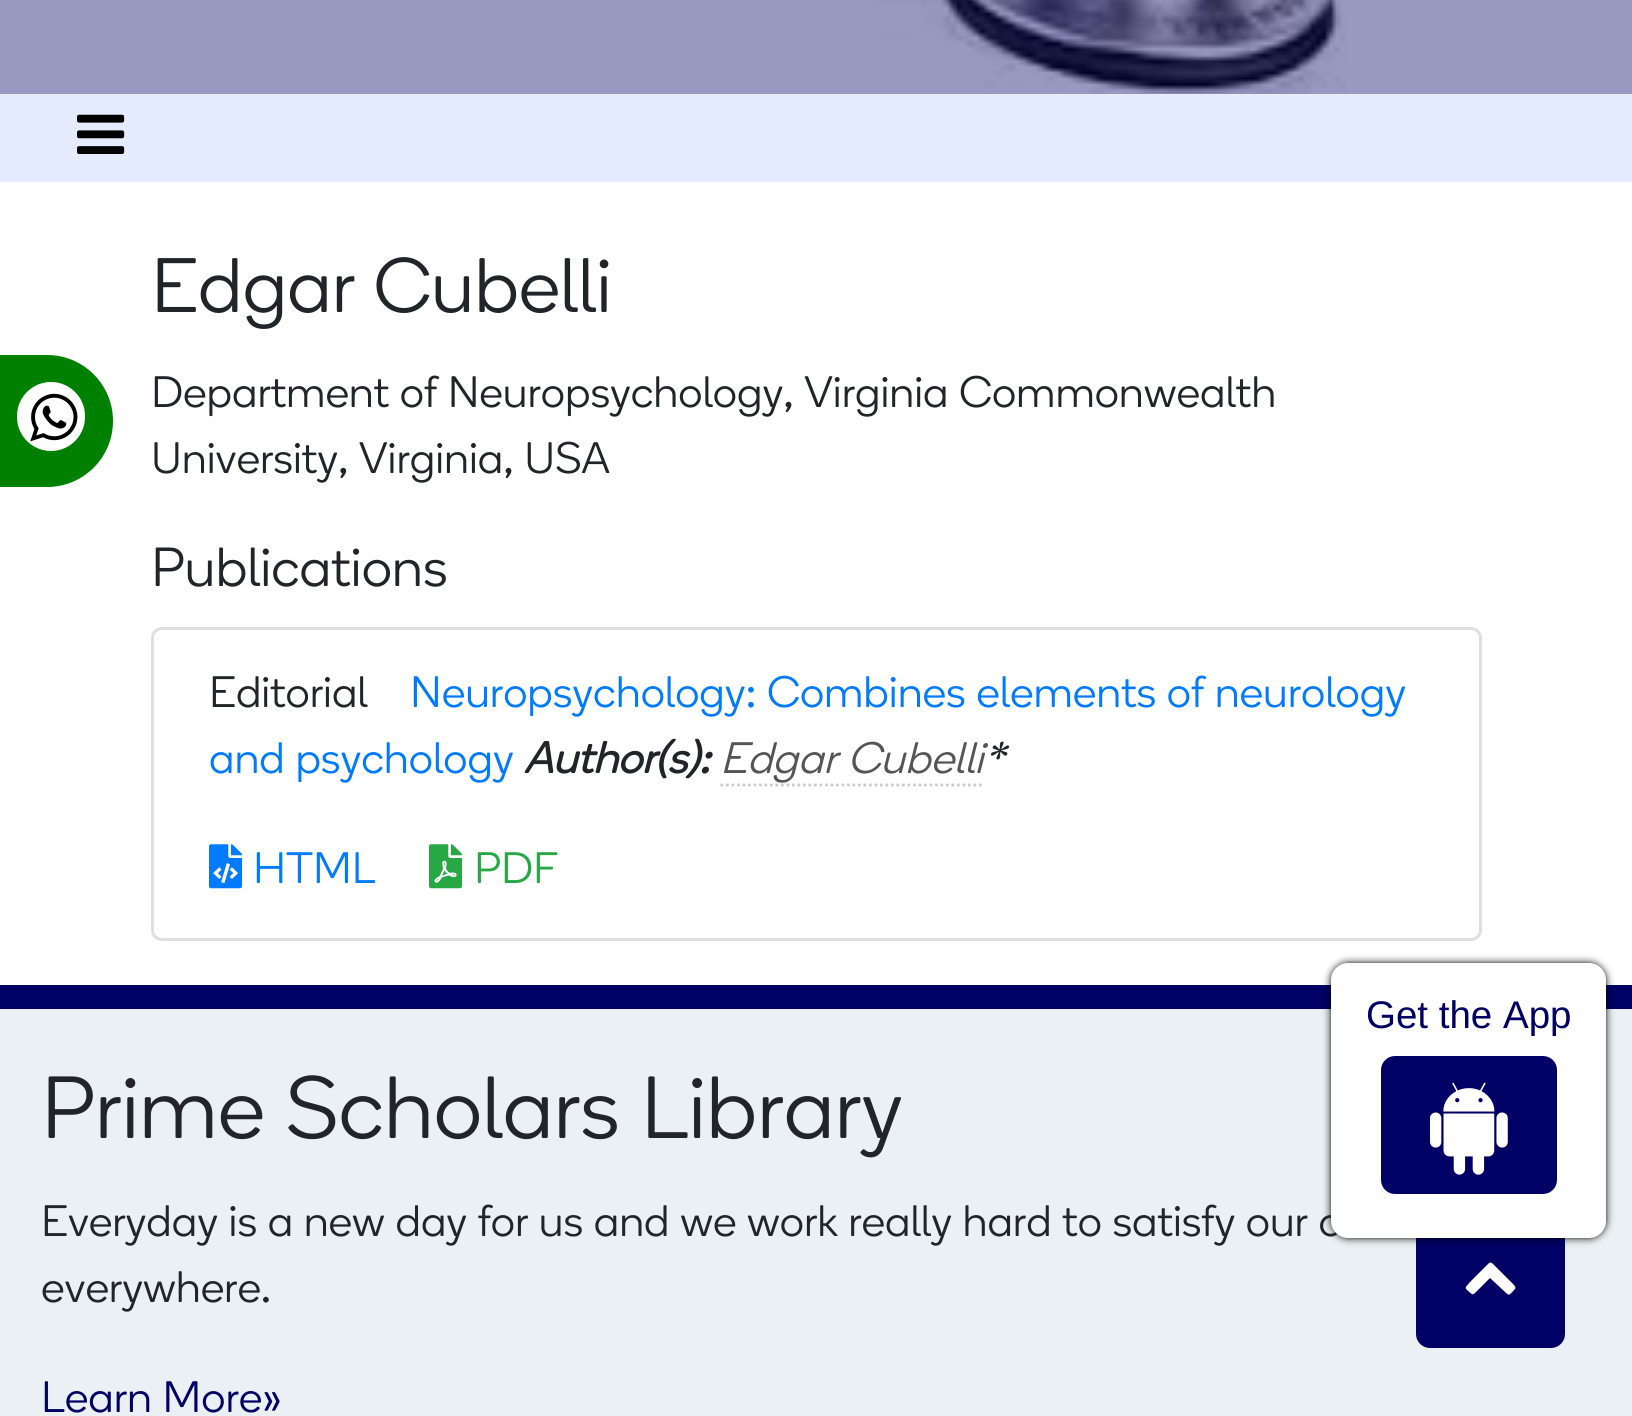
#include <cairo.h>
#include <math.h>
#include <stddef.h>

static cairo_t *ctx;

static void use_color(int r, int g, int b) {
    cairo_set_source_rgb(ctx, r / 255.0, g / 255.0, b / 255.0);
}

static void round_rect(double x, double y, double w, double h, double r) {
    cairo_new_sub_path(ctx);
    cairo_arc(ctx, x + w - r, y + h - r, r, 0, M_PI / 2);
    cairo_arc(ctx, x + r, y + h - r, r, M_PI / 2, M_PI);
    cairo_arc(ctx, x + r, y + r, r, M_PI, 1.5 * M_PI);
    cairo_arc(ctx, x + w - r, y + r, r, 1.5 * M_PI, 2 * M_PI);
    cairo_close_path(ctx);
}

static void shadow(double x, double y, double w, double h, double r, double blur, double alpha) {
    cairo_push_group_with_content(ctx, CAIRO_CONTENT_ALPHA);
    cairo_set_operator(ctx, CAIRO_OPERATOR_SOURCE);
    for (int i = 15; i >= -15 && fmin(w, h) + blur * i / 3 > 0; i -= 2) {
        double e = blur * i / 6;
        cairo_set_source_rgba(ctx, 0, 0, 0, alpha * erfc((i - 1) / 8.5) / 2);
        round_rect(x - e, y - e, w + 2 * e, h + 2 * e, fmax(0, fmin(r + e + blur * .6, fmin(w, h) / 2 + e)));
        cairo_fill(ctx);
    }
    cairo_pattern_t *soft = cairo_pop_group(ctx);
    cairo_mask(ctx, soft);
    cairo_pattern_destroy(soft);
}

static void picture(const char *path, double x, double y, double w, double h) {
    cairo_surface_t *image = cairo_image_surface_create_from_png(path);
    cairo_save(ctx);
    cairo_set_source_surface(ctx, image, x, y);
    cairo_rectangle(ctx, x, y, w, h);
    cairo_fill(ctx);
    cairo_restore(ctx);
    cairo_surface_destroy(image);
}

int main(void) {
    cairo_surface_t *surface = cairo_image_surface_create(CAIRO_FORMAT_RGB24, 1632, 1416);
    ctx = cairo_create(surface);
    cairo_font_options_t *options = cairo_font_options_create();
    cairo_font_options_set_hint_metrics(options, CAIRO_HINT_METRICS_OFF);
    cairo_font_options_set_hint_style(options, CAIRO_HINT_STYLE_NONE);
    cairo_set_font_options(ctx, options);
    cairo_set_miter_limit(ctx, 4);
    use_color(255, 255, 255);
    cairo_paint(ctx);
    use_color(153, 153, 193);
    cairo_rectangle(ctx, 0, 0, 1632, 94);
    cairo_fill(ctx);
    picture("img1.png", 873, 0, 474, 94);
    use_color(229, 236, 255);
    cairo_rectangle(ctx, 0, 94, 1632, 88);
    cairo_fill(ctx);
    picture("img2.png", 77, 114, 48, 40);
    use_color(0, 128, 0);
    cairo_new_path(ctx);
    cairo_move_to(ctx, -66, 355);
    cairo_line_to(ctx, 47, 355);
    cairo_curve_to(ctx, 83.5, 355, 113, 384.5, 113, 421);
    cairo_curve_to(ctx, 113, 457.5, 83.5, 487, 47, 487);
    cairo_line_to(ctx, -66, 487);
    cairo_close_path(ctx);
    cairo_fill(ctx);
    use_color(255, 255, 255);
    round_rect(17, 382, 68, 69, 34);
    cairo_fill(ctx);
    picture("img3.png", 30, 393, 48, 49);
    cairo_select_font_face(ctx, "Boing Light", CAIRO_FONT_SLANT_NORMAL, CAIRO_FONT_WEIGHT_NORMAL);
    cairo_set_font_size(ctx, 77);
    use_color(33, 37, 41);
    cairo_move_to(ctx, 151, 312);
    cairo_show_text(ctx, "Edgar Cubelli");
    cairo_set_font_size(ctx, 44);
    cairo_move_to(ctx, 151, 407);
    cairo_show_text(ctx, "Department of Neuropsychology, Virginia Commonwealth");
    cairo_move_to(ctx, 151, 473);
    cairo_show_text(ctx, "University, Virginia, USA");
    cairo_set_font_size(ctx, 55);
    cairo_move_to(ctx, 151, 586);
    cairo_show_text(ctx, "Publications");
    round_rect(152.5, 628.5, 1328, 311, 9.5);
    use_color(223, 223, 223);
    cairo_set_line_width(ctx, 3);
    cairo_stroke(ctx);
    cairo_set_font_size(ctx, 44);
    use_color(33, 37, 41);
    cairo_move_to(ctx, 209, 707);
    cairo_show_text(ctx, "Editorial");
    use_color(0, 123, 255);
    cairo_move_to(ctx, 410, 707);
    cairo_show_text(ctx, "Neuropsychology: Combines elements of neurology");
    cairo_move_to(ctx, 209, 773);
    cairo_show_text(ctx, "and psychology");
    cairo_select_font_face(ctx, "Boing", CAIRO_FONT_SLANT_ITALIC, CAIRO_FONT_WEIGHT_BOLD);
    use_color(33, 37, 41);
    cairo_move_to(ctx, 524, 773);
    cairo_show_text(ctx, "Author(s):");
    cairo_select_font_face(ctx, "Boing Light", CAIRO_FONT_SLANT_ITALIC, CAIRO_FONT_WEIGHT_NORMAL);
    use_color(85, 85, 85);
    cairo_move_to(ctx, 720, 773);
    cairo_show_text(ctx, "Edgar Cubelli");
    cairo_new_path(ctx);
    cairo_move_to(ctx, 720.5, 785);
    cairo_line_to(ctx, 984.5, 785);
    use_color(204, 204, 204);
    cairo_set_line_width(ctx, 2.8);
    cairo_set_dash(ctx, (double[]){2.75, 2.75}, 2, 0);
    cairo_stroke(ctx);
    use_color(33, 37, 41);
    cairo_move_to(ctx, 984, 773);
    cairo_show_text(ctx, "*");
    picture("img4.png", 209, 844, 33, 45);
    cairo_select_font_face(ctx, "Boing Light", CAIRO_FONT_SLANT_NORMAL, CAIRO_FONT_WEIGHT_NORMAL);
    use_color(0, 123, 255);
    cairo_move_to(ctx, 253, 883);
    cairo_show_text(ctx, "HTML");
    picture("img5.png", 429, 844, 33, 45);
    use_color(40, 167, 69);
    cairo_move_to(ctx, 474, 883);
    cairo_show_text(ctx, "PDF");
    use_color(234, 240, 243);
    cairo_rectangle(ctx, 0, 1009, 1632, 407);
    cairo_fill(ctx);
    use_color(1, 0, 101);
    cairo_rectangle(ctx, 0, 985, 1632, 24);
    cairo_fill(ctx);
    round_rect(1417.5, 1217.5, 146, 129, 12.5);
    cairo_fill_preserve(ctx);
    cairo_set_line_width(ctx, 3);
    cairo_set_dash(ctx, NULL, 0, 0);
    cairo_stroke(ctx);
    use_color(0, 0, 0);
    shadow(1331, 963, 275, 275, 17, 4, 1);
    use_color(33, 37, 41);
    cairo_move_to(ctx, 41, 1236);
    cairo_show_text(ctx, "Everyday is a new day for us and we work really hard to satisfy our c");
    use_color(255, 255, 255);
    round_rect(1332.5, 964.5, 272, 272, 15.5);
    cairo_fill_preserve(ctx);
    cairo_stroke(ctx);
    cairo_select_font_face(ctx, "Liberation Sans", CAIRO_FONT_SLANT_NORMAL, CAIRO_FONT_WEIGHT_NORMAL);
    cairo_set_font_size(ctx, 38.5);
    use_color(1, 0, 101);
    cairo_move_to(ctx, 1366, 1028);
    cairo_show_text(ctx, "Get the App");
    round_rect(1381, 1056, 176, 138, 14);
    cairo_fill(ctx);
    picture("img6.png", 1430, 1082, 78, 93);
    cairo_select_font_face(ctx, "Boing Light", CAIRO_FONT_SLANT_NORMAL, CAIRO_FONT_WEIGHT_NORMAL);
    cairo_set_font_size(ctx, 88);
    use_color(33, 37, 41);
    cairo_move_to(ctx, 41, 1138);
    cairo_show_text(ctx, "Prime Scholars Library");
    cairo_set_font_size(ctx, 44);
    cairo_move_to(ctx, 41, 1302);
    cairo_show_text(ctx, "everywhere.");
    use_color(1, 0, 101);
    cairo_move_to(ctx, 41, 1412);
    cairo_show_text(ctx, "Learn More»");
    use_color(255, 255, 255);
    cairo_new_path(ctx);
    cairo_move_to(ctx, 1515, 1289);
    cairo_curve_to(ctx, 1509, 1295, 1510, 1297, 1504, 1291);
    cairo_line_to(ctx, 1490, 1278);
    cairo_line_to(ctx, 1477, 1291);
    cairo_curve_to(ctx, 1472, 1296, 1473, 1295, 1467, 1290);
    cairo_curve_to(ctx, 1464, 1287, 1467, 1286, 1470, 1282);
    cairo_line_to(ctx, 1485, 1267);
    cairo_curve_to(ctx, 1491, 1261, 1490, 1261, 1496, 1267);
    cairo_line_to(ctx, 1511, 1282);
    cairo_curve_to(ctx, 1512, 1283, 1517, 1287, 1515, 1289);
    cairo_close_path(ctx);
    cairo_fill(ctx);
    cairo_surface_write_to_png(surface, "result.png");
    cairo_font_options_destroy(options);
    cairo_destroy(ctx);
    cairo_surface_destroy(surface);
    return 0;
}
